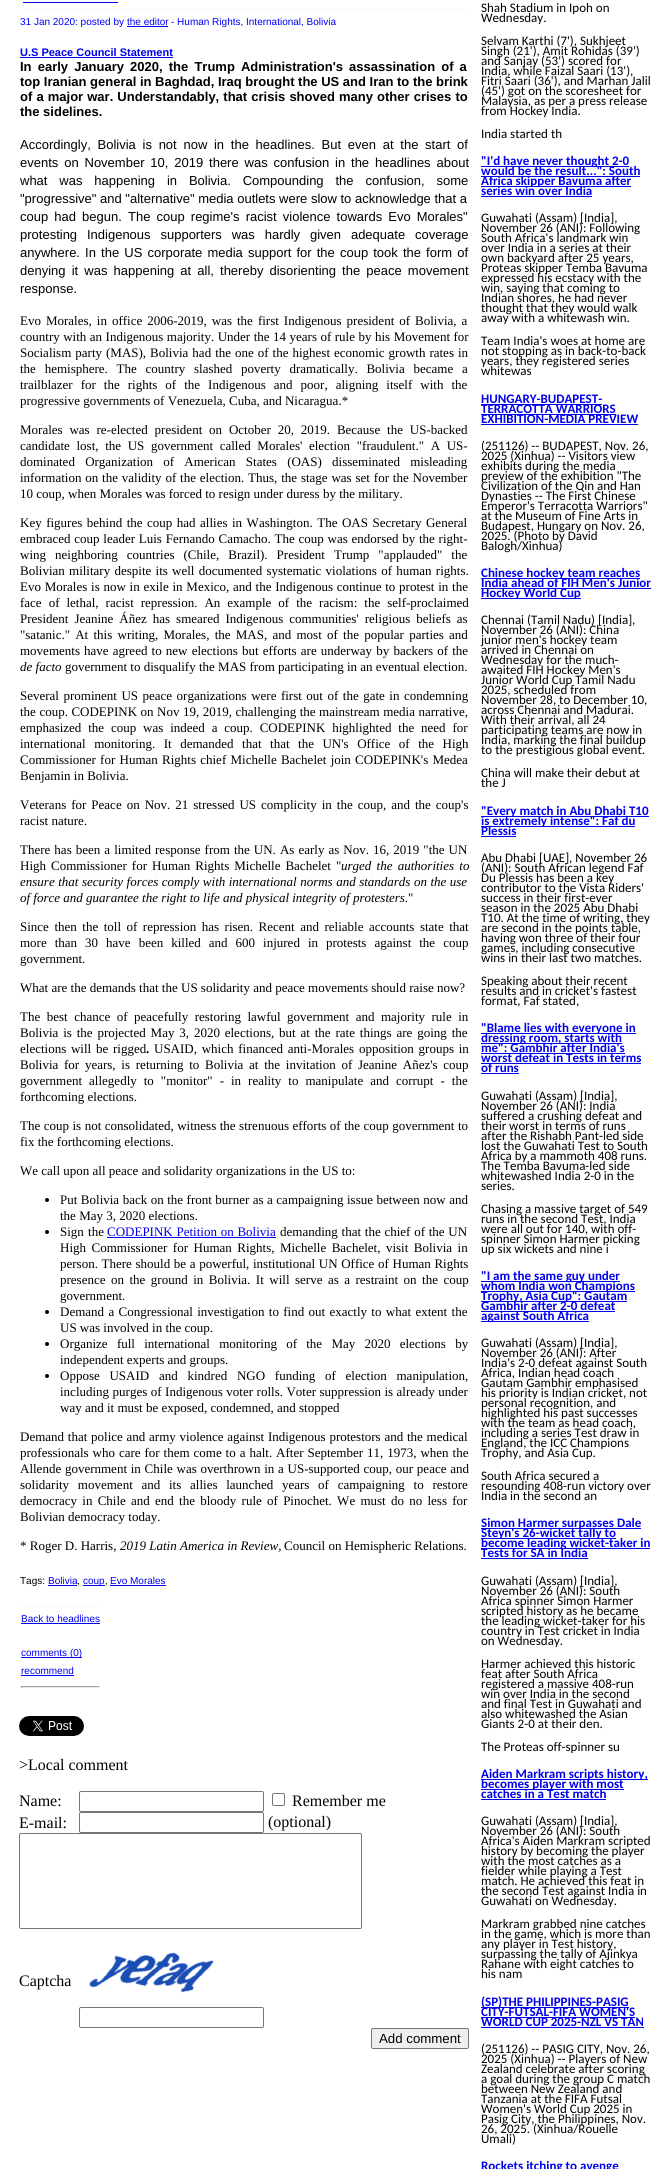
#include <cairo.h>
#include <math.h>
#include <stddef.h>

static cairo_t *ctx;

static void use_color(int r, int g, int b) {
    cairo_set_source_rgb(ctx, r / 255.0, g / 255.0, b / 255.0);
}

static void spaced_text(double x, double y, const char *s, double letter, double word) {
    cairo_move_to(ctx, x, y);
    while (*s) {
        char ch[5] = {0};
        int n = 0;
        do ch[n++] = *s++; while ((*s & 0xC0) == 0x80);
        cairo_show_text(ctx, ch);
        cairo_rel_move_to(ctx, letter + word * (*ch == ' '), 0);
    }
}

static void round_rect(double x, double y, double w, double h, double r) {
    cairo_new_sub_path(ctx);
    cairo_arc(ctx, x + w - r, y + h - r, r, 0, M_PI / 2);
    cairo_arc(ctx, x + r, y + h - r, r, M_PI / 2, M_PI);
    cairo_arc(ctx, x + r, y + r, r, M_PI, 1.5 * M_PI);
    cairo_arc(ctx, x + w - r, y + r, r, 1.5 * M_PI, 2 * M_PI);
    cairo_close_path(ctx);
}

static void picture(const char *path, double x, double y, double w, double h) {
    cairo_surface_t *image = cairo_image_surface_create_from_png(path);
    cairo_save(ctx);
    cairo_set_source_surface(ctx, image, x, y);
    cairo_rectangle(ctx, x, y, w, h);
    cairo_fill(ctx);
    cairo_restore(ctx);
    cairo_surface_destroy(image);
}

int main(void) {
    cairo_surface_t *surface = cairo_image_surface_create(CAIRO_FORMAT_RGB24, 670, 2169);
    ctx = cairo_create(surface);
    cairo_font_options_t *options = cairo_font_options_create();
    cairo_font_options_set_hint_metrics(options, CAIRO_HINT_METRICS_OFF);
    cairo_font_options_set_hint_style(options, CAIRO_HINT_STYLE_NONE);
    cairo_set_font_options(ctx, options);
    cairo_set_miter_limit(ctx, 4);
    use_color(255, 255, 255);
    cairo_paint(ctx);
    use_color(0, 0, 238);
    cairo_rectangle(ctx, 23, 2, 95, 1);
    cairo_fill(ctx);
    cairo_new_path(ctx);
    cairo_move_to(ctx, 19, 9.5);
    cairo_line_to(ctx, 469, 9.5);
    use_color(242, 243, 243);
    cairo_set_line_width(ctx, 1);
    cairo_set_dash(ctx, (double[]){1, 1}, 2, 0);
    cairo_stroke(ctx);
    cairo_select_font_face(ctx, "Liberation Sans", CAIRO_FONT_SLANT_NORMAL, CAIRO_FONT_WEIGHT_NORMAL);
    cairo_set_font_size(ctx, 10);
    use_color(0, 0, 255);
    cairo_move_to(ctx, 20, 25);
    cairo_show_text(ctx, "31 Jan 2020: posted by");
    use_color(0, 0, 238);
    cairo_move_to(ctx, 127, 25);
    cairo_show_text(ctx, "the editor");
    cairo_rectangle(ctx, 127, 26, 41, 1);
    cairo_fill(ctx);
    use_color(0, 0, 255);
    cairo_move_to(ctx, 171, 25);
    cairo_show_text(ctx, "- Human Rights, International, Bolivia");
    cairo_select_font_face(ctx, "Liberation Sans", CAIRO_FONT_SLANT_NORMAL, CAIRO_FONT_WEIGHT_BOLD);
    cairo_set_font_size(ctx, 11);
    use_color(0, 0, 238);
    cairo_move_to(ctx, 20, 56);
    cairo_show_text(ctx, "U.S Peace Council Statement");
    cairo_rectangle(ctx, 20, 57, 153, 1);
    cairo_fill(ctx);
    cairo_set_font_size(ctx, 13);
    use_color(0, 0, 0);
    spaced_text(20, 71, "In early January 2020, the Trump Administration's assassination of a", 0, 2.5);
    cairo_move_to(ctx, 20, 86);
    cairo_show_text(ctx, "top Iranian general in Baghdad, Iraq brought the US and Iran to the brink");
    spaced_text(20, 101, "of a major war. Understandably, that crisis shoved many other crises to", 0, 0.5);
    cairo_move_to(ctx, 20, 116);
    cairo_show_text(ctx, "the sidelines.");
    cairo_select_font_face(ctx, "Liberation Sans", CAIRO_FONT_SLANT_NORMAL, CAIRO_FONT_WEIGHT_NORMAL);
    spaced_text(20, 149, "Accordingly, Bolivia is not now in the headlines. But even at the start of", 0, 3.1);
    spaced_text(20, 167, "events on November 10, 2019 there was confusion in the headlines about", 0, 2.25);
    spaced_text(20, 185, "what was happening in Bolivia. Compounding the confusion, some", 0, 8.25);
    cairo_move_to(ctx, 20, 203);
    cairo_show_text(ctx, "\"progressive\" and \"alternative\" media outlets were slow to acknowledge that a");
    spaced_text(20, 221, "coup had begun. The coup regime's racist violence towards Evo Morales\"", 0, 2.5);
    spaced_text(20, 239, "protesting Indigenous supporters was hardly given adequate coverage", 0, 6.25);
    spaced_text(20, 257, "anywhere. In the US corporate media support for the coup took the form of", 0, 1.5);
    spaced_text(20, 275, "denying it was happening at all, thereby disorienting the peace movement", 0, 2.5);
    cairo_move_to(ctx, 20, 293);
    cairo_show_text(ctx, "response.");
    cairo_select_font_face(ctx, "Liberation Serif", CAIRO_FONT_SLANT_NORMAL, CAIRO_FONT_WEIGHT_NORMAL);
    spaced_text(20, 325, "Evo Morales, in office 2006-2019, was the first Indigenous president of Bolivia, a", 0, 1.75);
    spaced_text(20, 341, "country with an Indigenous majority. Under the 14 years of rule by his Movement for", 0, 0.25);
    spaced_text(20, 357, "Socialism party (MAS), Bolivia had the one of the highest economic growth rates in", 0, 0.75);
    spaced_text(20, 373, "the hemisphere. The country slashed poverty dramatically. Bolivia became a", 0, 5.5);
    spaced_text(20, 389, "trailblazer for the rights of the Indigenous and poor, aligning itself with the", 0, 4.75);
    cairo_move_to(ctx, 20, 405);
    cairo_show_text(ctx, "progressive governments of Venezuela, Cuba, and Nicaragua.*");
    spaced_text(20, 434, "Morales was re-elected president on October 20, 2019. Because the US-backed", 0, 3.6);
    spaced_text(20, 450, "candidate lost, the US government called Morales' election \"fraudulent.\" A US-", 0, 3.4);
    spaced_text(20, 466, "dominated Organization of American States (OAS) disseminated misleading", 0, 7);
    spaced_text(20, 482, "information on the validity of the election. Thus, the stage was set for the November", 0, 0.6);
    cairo_move_to(ctx, 20, 498);
    cairo_show_text(ctx, "10 coup, when Morales was forced to resign under duress by the military.");
    spaced_text(20, 527, "Key figures behind the coup had allies in Washington. The OAS Secretary General", 0, 1.25);
    spaced_text(20, 543, "embraced coup leader Luis Fernando Camacho. The coup was endorsed by the right-", 0, 0.5);
    spaced_text(20, 559, "wing neighboring countries (Chile, Brazil). President Trump \"applauded\" the", 0, 5.75);
    spaced_text(20, 575, "Bolivian military despite its well documented systematic violations of human rights.", 0, 1);
    spaced_text(20, 591, "Evo Morales is now in exile in Mexico, and the Indigenous continue to protest in the", 0, 0.5);
    spaced_text(20, 607, "face of lethal, racist repression. An example of the racism: the self-proclaimed", 0, 3.75);
    spaced_text(20, 623, "President Jeanine Áñez has smeared Indigenous communities' religious beliefs as", 0, 2.75);
    spaced_text(20, 639, "\"satanic.\" At this writing, Morales, the MAS, and most of the popular parties and", 0, 2);
    spaced_text(20, 655, "movements have agreed to new elections but efforts are underway by backers of the", 0, 0.9);
    cairo_select_font_face(ctx, "Liberation Serif", CAIRO_FONT_SLANT_ITALIC, CAIRO_FONT_WEIGHT_NORMAL);
    cairo_move_to(ctx, 20, 671);
    cairo_show_text(ctx, "de facto");
    cairo_select_font_face(ctx, "Liberation Serif", CAIRO_FONT_SLANT_NORMAL, CAIRO_FONT_WEIGHT_NORMAL);
    cairo_move_to(ctx, 65, 671);
    cairo_show_text(ctx, "government to disqualify the MAS from participating in an eventual election.");
    spaced_text(20, 700, "Several prominent US peace organizations were first out of the gate in condemning", 0, 1.25);
    spaced_text(20, 716, "the coup. CODEPINK on Nov 19, 2019, challenging the mainstream media narrative,", 0, 0.25);
    spaced_text(20, 732, "emphasized the coup was indeed a coup. CODEPINK highlighted the need for", 0, 3.6);
    spaced_text(20, 748, "international monitoring. It demanded that that the UN's Office of the High", 0, 5.25);
    spaced_text(20, 764, "Commissioner for Human Rights chief Michelle Bachelet join CODEPINK's Medea", 0, 1);
    cairo_move_to(ctx, 20, 780);
    cairo_show_text(ctx, "Benjamin in Bolivia.");
    spaced_text(20, 809, "Veterans for Peace on Nov. 21 stressed US complicity in the coup, and the coup's", 0, 1.75);
    cairo_move_to(ctx, 20, 825);
    cairo_show_text(ctx, "racist nature.");
    spaced_text(20, 854, "There has been a limited response from the UN. As early as Nov. 16, 2019 \"the UN", 0, 0.8);
    spaced_text(20, 870, "High Commissioner for Human Rights Michelle Bachelet \"", 0, 1.75);
    cairo_select_font_face(ctx, "Liberation Serif", CAIRO_FONT_SLANT_ITALIC, CAIRO_FONT_WEIGHT_NORMAL);
    spaced_text(341, 870, "urged the authorities to", 0, 2);
    spaced_text(20, 886, "ensure that security forces comply with international norms and standards on the use", 0, 0.25);
    cairo_move_to(ctx, 20, 902);
    cairo_show_text(ctx, "of force and guarantee the right to life and physical integrity of protesters.");
    cairo_select_font_face(ctx, "Liberation Serif", CAIRO_FONT_SLANT_NORMAL, CAIRO_FONT_WEIGHT_NORMAL);
    cairo_move_to(ctx, 408, 902);
    cairo_show_text(ctx, "\"");
    spaced_text(20, 931, "Since then the toll of repression has risen. Recent and reliable accounts state that", 0, 2.25);
    spaced_text(20, 947, "more than 30 have been killed and 600 injured in protests against the coup", 0, 4.75);
    cairo_move_to(ctx, 20, 963);
    cairo_show_text(ctx, "government.");
    cairo_move_to(ctx, 20, 992);
    cairo_show_text(ctx, "What are the demands that the US solidarity and peace movements should raise now?");
    spaced_text(20, 1021, "The best chance of peacefully restoring lawful government and majority rule in", 0, 3.25);
    spaced_text(20, 1037, "Bolivia is the projected May 3, 2020 elections, but at the rate things are going the", 0, 1.6);
    spaced_text(20, 1053, "elections will be rigged", 0, 1.5);
    cairo_select_font_face(ctx, "Liberation Serif", CAIRO_FONT_SLANT_NORMAL, CAIRO_FONT_WEIGHT_BOLD);
    cairo_move_to(ctx, 146, 1053);
    cairo_show_text(ctx, ".");
    cairo_select_font_face(ctx, "Liberation Serif", CAIRO_FONT_SLANT_NORMAL, CAIRO_FONT_WEIGHT_NORMAL);
    spaced_text(154, 1053, "USAID, which financed anti-Morales opposition groups in", 0, 1.5);
    spaced_text(20, 1069, "Bolivia for years, is returning to Bolivia at the invitation of Jeanine Añez's coup", 0, 2.5);
    spaced_text(20, 1085, "government allegedly to \"monitor\" - in reality to manipulate and corrupt - the", 0, 3.75);
    cairo_move_to(ctx, 20, 1101);
    cairo_show_text(ctx, "forthcoming elections.");
    spaced_text(20, 1130, "The coup is not consolidated, witness the strenuous efforts of the coup government to", 0, 0.25);
    cairo_move_to(ctx, 20, 1146);
    cairo_show_text(ctx, "fix the forthcoming elections.");
    cairo_move_to(ctx, 20, 1175);
    cairo_show_text(ctx, "We call upon all peace and solidarity organizations in the US to:");
    cairo_new_path(ctx);
    cairo_arc(ctx, 47, 1200, 2, 0, 2 * M_PI);
    cairo_fill(ctx);
    spaced_text(60, 1204, "Put Bolivia back on the front burner as a campaigning issue between now and", 0, 0.25);
    cairo_move_to(ctx, 60, 1220);
    cairo_show_text(ctx, "the May 3, 2020 elections.");
    cairo_new_path(ctx);
    cairo_arc(ctx, 47, 1232, 2, 0, 2 * M_PI);
    cairo_fill(ctx);
    spaced_text(60, 1236, "Sign the", 0, 1);
    use_color(0, 0, 238);
    spaced_text(107, 1236, "CODEPINK Petition on Bolivia", 0, 0.5);
    cairo_rectangle(ctx, 107, 1237, 169, 1);
    cairo_fill(ctx);
    use_color(0, 0, 0);
    spaced_text(280, 1236, "demanding that the chief of the UN", 0, 0.5);
    spaced_text(60, 1252, "High Commissioner for Human Rights, Michelle Bachelet, visit Bolivia in", 0, 2.25);
    spaced_text(60, 1268, "person. There should be a powerful, institutional UN Office of Human Rights", 0, 0.4);
    spaced_text(60, 1284, "presence on the ground in Bolivia. It will serve as a restraint on the coup", 0, 2.25);
    cairo_move_to(ctx, 60, 1300);
    cairo_show_text(ctx, "government.");
    cairo_new_path(ctx);
    cairo_arc(ctx, 47, 1312, 2, 0, 2 * M_PI);
    cairo_fill(ctx);
    spaced_text(60, 1316, "Demand a Congressional investigation to find out exactly to what extent the", 0, 1.1);
    cairo_move_to(ctx, 60, 1332);
    cairo_show_text(ctx, "US was involved in the coup.");
    cairo_new_path(ctx);
    cairo_arc(ctx, 47, 1344, 2, 0, 2 * M_PI);
    cairo_fill(ctx);
    spaced_text(60, 1348, "Organize full international monitoring of the May 2020 elections by", 0, 6);
    cairo_move_to(ctx, 60, 1364);
    cairo_show_text(ctx, "independent experts and groups.");
    cairo_new_path(ctx);
    cairo_arc(ctx, 47, 1376, 2, 0, 2 * M_PI);
    cairo_fill(ctx);
    spaced_text(60, 1380, "Oppose USAID and kindred NGO funding of election manipulation,", 0, 6.5);
    spaced_text(60, 1396, "including purges of Indigenous voter rolls. Voter suppression is already under", 0, 0.25);
    cairo_move_to(ctx, 60, 1412);
    cairo_show_text(ctx, "way and it must be exposed, condemned, and stopped");
    spaced_text(20, 1441, "Demand that police and army violence against Indigenous protestors and the medical", 0, 0.5);
    spaced_text(20, 1457, "professionals who care for them come to a halt. After September 11, 1973, when the", 0, 0.7);
    spaced_text(20, 1473, "Allende government in Chile was overthrown in a US-supported coup, our peace and", 0, 0.5);
    spaced_text(20, 1489, "solidarity movement and its allies launched years of campaigning to restore", 0, 5.5);
    spaced_text(20, 1505, "democracy in Chile and end the bloody rule of Pinochet. We must do no less for", 0, 2);
    cairo_move_to(ctx, 20, 1521);
    cairo_show_text(ctx, "Bolivian democracy today.");
    cairo_move_to(ctx, 20, 1550);
    cairo_show_text(ctx, "* Roger D. Harris,");
    cairo_select_font_face(ctx, "Liberation Serif", CAIRO_FONT_SLANT_ITALIC, CAIRO_FONT_WEIGHT_NORMAL);
    cairo_move_to(ctx, 120, 1550);
    cairo_show_text(ctx, "2019 Latin America in Review,");
    cairo_select_font_face(ctx, "Liberation Serif", CAIRO_FONT_SLANT_NORMAL, CAIRO_FONT_WEIGHT_NORMAL);
    cairo_move_to(ctx, 284, 1550);
    cairo_show_text(ctx, "Council on Hemispheric Relations.");
    cairo_select_font_face(ctx, "Liberation Sans", CAIRO_FONT_SLANT_NORMAL, CAIRO_FONT_WEIGHT_NORMAL);
    cairo_set_font_size(ctx, 10);
    cairo_move_to(ctx, 20, 1584);
    cairo_show_text(ctx, "Tags:");
    use_color(0, 0, 238);
    cairo_move_to(ctx, 48, 1584);
    cairo_show_text(ctx, "Bolivia");
    use_color(0, 0, 0);
    cairo_move_to(ctx, 77, 1584);
    cairo_show_text(ctx, ",");
    use_color(0, 0, 238);
    cairo_rectangle(ctx, 48, 1585, 29, 1);
    cairo_fill(ctx);
    cairo_rectangle(ctx, 83, 1585, 22, 1);
    cairo_fill(ctx);
    cairo_move_to(ctx, 83, 1584);
    cairo_show_text(ctx, "coup");
    use_color(0, 0, 0);
    cairo_move_to(ctx, 105, 1584);
    cairo_show_text(ctx, ",");
    use_color(0, 0, 238);
    cairo_rectangle(ctx, 110, 1585, 56, 1);
    cairo_fill(ctx);
    cairo_move_to(ctx, 110, 1584);
    cairo_show_text(ctx, "Evo Morales");
    cairo_new_path(ctx);
    cairo_move_to(ctx, 20, 1606.5);
    cairo_line_to(ctx, 101, 1606.5);
    use_color(242, 243, 243);
    cairo_stroke(ctx);
    use_color(0, 0, 238);
    cairo_move_to(ctx, 21, 1622);
    cairo_show_text(ctx, "Back to headlines");
    cairo_rectangle(ctx, 21, 1623, 79, 1);
    cairo_fill(ctx);
    cairo_rectangle(ctx, 21, 1657, 61, 1);
    cairo_fill(ctx);
    cairo_move_to(ctx, 21, 1656);
    cairo_show_text(ctx, "comments (0)");
    cairo_move_to(ctx, 21, 1674);
    cairo_show_text(ctx, "recommend");
    cairo_rectangle(ctx, 21, 1675, 53, 1);
    cairo_fill(ctx);
    use_color(159, 159, 159);
    cairo_rectangle(ctx, 21, 1686, 79, 1);
    cairo_fill(ctx);
    use_color(238, 238, 238);
    cairo_rectangle(ctx, 99, 1686, 1, 2);
    cairo_fill(ctx);
    cairo_rectangle(ctx, 21, 1687, 79, 1);
    cairo_fill(ctx);
    use_color(159, 159, 159);
    cairo_rectangle(ctx, 21, 1686, 1, 2);
    cairo_fill(ctx);
    picture("img1.png", 19, 1716, 65, 20);
    cairo_select_font_face(ctx, "Liberation Serif", CAIRO_FONT_SLANT_NORMAL, CAIRO_FONT_WEIGHT_NORMAL);
    cairo_set_font_size(ctx, 16);
    use_color(0, 0, 0);
    cairo_move_to(ctx, 19, 1770);
    cairo_show_text(ctx, ">Local comment");
    cairo_move_to(ctx, 19, 1806);
    cairo_show_text(ctx, "Name:");
    round_rect(79.5, 1791.5, 184, 20, 1.5);
    use_color(118, 118, 118);
    cairo_set_dash(ctx, NULL, 0, 0);
    cairo_stroke(ctx);
    round_rect(272.5, 1793.5, 12, 12, 1.5);
    cairo_stroke(ctx);
    use_color(0, 0, 0);
    cairo_move_to(ctx, 292, 1806);
    cairo_show_text(ctx, "Remember me");
    cairo_move_to(ctx, 19, 1828);
    cairo_show_text(ctx, "E-mail:");
    round_rect(79.5, 1812.5, 184, 20, 1.5);
    use_color(118, 118, 118);
    cairo_stroke(ctx);
    use_color(0, 0, 0);
    cairo_move_to(ctx, 268, 1827);
    cairo_show_text(ctx, "(optional)");
    round_rect(19.5, 1833.5, 342, 95, 1.5);
    use_color(118, 118, 118);
    cairo_stroke(ctx);
    use_color(0, 0, 0);
    cairo_move_to(ctx, 19, 1986);
    cairo_show_text(ctx, "Captcha");
    picture("img2.png", 89, 1952, 125, 41);
    round_rect(79.5, 2007.5, 184, 20, 1.5);
    use_color(118, 118, 118);
    cairo_stroke(ctx);
    use_color(239, 239, 239);
    round_rect(371.5, 2028.5, 97, 20, 1.5);
    cairo_fill_preserve(ctx);
    use_color(118, 118, 118);
    cairo_stroke(ctx);
    cairo_select_font_face(ctx, "Liberation Sans", CAIRO_FONT_SLANT_NORMAL, CAIRO_FONT_WEIGHT_NORMAL);
    cairo_set_font_size(ctx, 13.25);
    use_color(0, 0, 0);
    cairo_move_to(ctx, 379, 2043);
    cairo_show_text(ctx, "Add comment");
    cairo_select_font_face(ctx, "Carlito", CAIRO_FONT_SLANT_NORMAL, CAIRO_FONT_WEIGHT_NORMAL);
    cairo_set_font_size(ctx, 13);
    cairo_move_to(ctx, 481, 12);
    cairo_show_text(ctx, "Shah Stadium in Ipoh on");
    cairo_move_to(ctx, 481, 22);
    cairo_show_text(ctx, "Wednesday.");
    cairo_move_to(ctx, 481, 45);
    cairo_show_text(ctx, "Selvam Karthi (7'), Sukhjeet");
    cairo_move_to(ctx, 481, 55);
    cairo_show_text(ctx, "Singh (21'), Amit Rohidas (39')");
    cairo_move_to(ctx, 481, 65);
    cairo_show_text(ctx, "and Sanjay (53') scored for");
    cairo_move_to(ctx, 481, 75);
    cairo_show_text(ctx, "India, while Faizal Saari (13'),");
    cairo_move_to(ctx, 481, 85);
    cairo_show_text(ctx, "Fitri Saari (36'), and Marhan Jalil");
    cairo_move_to(ctx, 481, 95);
    cairo_show_text(ctx, "(45') got on the scoresheet for");
    cairo_move_to(ctx, 481, 105);
    cairo_show_text(ctx, "Malaysia, as per a press release");
    cairo_move_to(ctx, 481, 115);
    cairo_show_text(ctx, "from Hockey India.");
    cairo_move_to(ctx, 481, 138);
    cairo_show_text(ctx, "India started th");
    use_color(0, 0, 238);
    cairo_rectangle(ctx, 481, 166, 148, 1);
    cairo_fill(ctx);
    cairo_select_font_face(ctx, "Carlito", CAIRO_FONT_SLANT_NORMAL, CAIRO_FONT_WEIGHT_BOLD);
    cairo_move_to(ctx, 481, 165);
    cairo_show_text(ctx, "\"I'd have never thought 2-0");
    cairo_move_to(ctx, 481, 175);
    cairo_show_text(ctx, "would be the result...\": South");
    cairo_rectangle(ctx, 481, 176, 159, 1);
    cairo_fill(ctx);
    cairo_rectangle(ctx, 481, 186, 150, 1);
    cairo_fill(ctx);
    cairo_move_to(ctx, 481, 185);
    cairo_show_text(ctx, "Africa skipper Bavuma after");
    cairo_move_to(ctx, 481, 195);
    cairo_show_text(ctx, "series win over India");
    cairo_rectangle(ctx, 481, 196, 111, 1);
    cairo_fill(ctx);
    cairo_select_font_face(ctx, "Carlito", CAIRO_FONT_SLANT_NORMAL, CAIRO_FONT_WEIGHT_NORMAL);
    use_color(0, 0, 0);
    cairo_move_to(ctx, 481, 222);
    cairo_show_text(ctx, "Guwahati (Assam) [India],");
    cairo_move_to(ctx, 481, 232);
    cairo_show_text(ctx, "November 26 (ANI): Following");
    cairo_move_to(ctx, 481, 242);
    cairo_show_text(ctx, "South Africa's landmark win");
    cairo_move_to(ctx, 481, 252);
    cairo_show_text(ctx, "over India in a series at their");
    cairo_move_to(ctx, 481, 262);
    cairo_show_text(ctx, "own backyard after 25 years,");
    cairo_move_to(ctx, 481, 272);
    cairo_show_text(ctx, "Proteas skipper Temba Bavuma");
    cairo_move_to(ctx, 481, 282);
    cairo_show_text(ctx, "expressed his ecstacy with the");
    cairo_move_to(ctx, 481, 292);
    cairo_show_text(ctx, "win, saying that coming to");
    cairo_move_to(ctx, 481, 302);
    cairo_show_text(ctx, "Indian shores, he had never");
    cairo_move_to(ctx, 481, 312);
    cairo_show_text(ctx, "thought that they would walk");
    cairo_move_to(ctx, 481, 322);
    cairo_show_text(ctx, "away with a whitewash win.");
    cairo_move_to(ctx, 481, 345);
    cairo_show_text(ctx, "Team India's woes at home are");
    cairo_move_to(ctx, 481, 355);
    cairo_show_text(ctx, "not stopping as in back-to-back");
    cairo_move_to(ctx, 481, 365);
    cairo_show_text(ctx, "years, they registered series");
    cairo_move_to(ctx, 481, 375);
    cairo_show_text(ctx, "whitewas");
    cairo_select_font_face(ctx, "Carlito", CAIRO_FONT_SLANT_NORMAL, CAIRO_FONT_WEIGHT_BOLD);
    use_color(0, 0, 238);
    cairo_move_to(ctx, 481, 403);
    cairo_show_text(ctx, "HUNGARY-BUDAPEST-");
    cairo_rectangle(ctx, 481, 404, 121, 1);
    cairo_fill(ctx);
    cairo_move_to(ctx, 481, 413);
    cairo_show_text(ctx, "TERRACOTTA WARRIORS");
    cairo_rectangle(ctx, 481, 414, 135, 1);
    cairo_fill(ctx);
    cairo_move_to(ctx, 481, 423);
    cairo_show_text(ctx, "EXHIBITION-MEDIA PREVIEW");
    cairo_rectangle(ctx, 481, 424, 157, 1);
    cairo_fill(ctx);
    cairo_select_font_face(ctx, "Carlito", CAIRO_FONT_SLANT_NORMAL, CAIRO_FONT_WEIGHT_NORMAL);
    use_color(0, 0, 0);
    cairo_move_to(ctx, 481, 450);
    cairo_show_text(ctx, "(251126) -- BUDAPEST, Nov. 26,");
    cairo_move_to(ctx, 481, 460);
    cairo_show_text(ctx, "2025 (Xinhua) -- Visitors view");
    cairo_move_to(ctx, 481, 470);
    cairo_show_text(ctx, "exhibits during the media");
    cairo_move_to(ctx, 481, 480);
    cairo_show_text(ctx, "preview of the exhibition \"The");
    cairo_move_to(ctx, 481, 490);
    cairo_show_text(ctx, "Civilization of the Qin and Han");
    cairo_move_to(ctx, 481, 500);
    cairo_show_text(ctx, "Dynasties -- The First Chinese");
    cairo_move_to(ctx, 481, 510);
    cairo_show_text(ctx, "Emperor's Terracotta Warriors\"");
    cairo_move_to(ctx, 481, 520);
    cairo_show_text(ctx, "at the Museum of Fine Arts in");
    cairo_move_to(ctx, 481, 530);
    cairo_show_text(ctx, "Budapest, Hungary on Nov. 26,");
    cairo_move_to(ctx, 481, 540);
    cairo_show_text(ctx, "2025. (Photo by David");
    cairo_move_to(ctx, 481, 550);
    cairo_show_text(ctx, "Balogh/Xinhua)");
    use_color(0, 0, 238);
    cairo_rectangle(ctx, 481, 578, 159, 1);
    cairo_fill(ctx);
    cairo_select_font_face(ctx, "Carlito", CAIRO_FONT_SLANT_NORMAL, CAIRO_FONT_WEIGHT_BOLD);
    cairo_move_to(ctx, 481, 577);
    cairo_show_text(ctx, "Chinese hockey team reaches");
    cairo_move_to(ctx, 481, 587);
    cairo_show_text(ctx, "India ahead of FIH Men's Junior");
    cairo_rectangle(ctx, 481, 588, 170, 1);
    cairo_fill(ctx);
    cairo_rectangle(ctx, 481, 598, 100, 1);
    cairo_fill(ctx);
    cairo_move_to(ctx, 481, 597);
    cairo_show_text(ctx, "Hockey World Cup");
    cairo_select_font_face(ctx, "Carlito", CAIRO_FONT_SLANT_NORMAL, CAIRO_FONT_WEIGHT_NORMAL);
    use_color(0, 0, 0);
    cairo_move_to(ctx, 481, 624);
    cairo_show_text(ctx, "Chennai (Tamil Nadu) [India],");
    cairo_move_to(ctx, 481, 634);
    cairo_show_text(ctx, "November 26 (ANI): China");
    cairo_move_to(ctx, 481, 644);
    cairo_show_text(ctx, "junior men's hockey team");
    cairo_move_to(ctx, 481, 654);
    cairo_show_text(ctx, "arrived in Chennai on");
    cairo_move_to(ctx, 481, 664);
    cairo_show_text(ctx, "Wednesday for the much-");
    cairo_move_to(ctx, 481, 674);
    cairo_show_text(ctx, "awaited FIH Hockey Men's");
    cairo_move_to(ctx, 481, 684);
    cairo_show_text(ctx, "Junior World Cup Tamil Nadu");
    cairo_move_to(ctx, 481, 694);
    cairo_show_text(ctx, "2025, scheduled from");
    cairo_move_to(ctx, 481, 704);
    cairo_show_text(ctx, "November 28, to December 10,");
    cairo_move_to(ctx, 481, 714);
    cairo_show_text(ctx, "across Chennai and Madurai.");
    cairo_move_to(ctx, 481, 724);
    cairo_show_text(ctx, "With their arrival, all 24");
    cairo_move_to(ctx, 481, 734);
    cairo_show_text(ctx, "participating teams are now in");
    cairo_move_to(ctx, 481, 744);
    cairo_show_text(ctx, "India, marking the final buildup");
    cairo_move_to(ctx, 481, 754);
    cairo_show_text(ctx, "to the prestigious global event.");
    cairo_move_to(ctx, 481, 777);
    cairo_show_text(ctx, "China will make their debut at");
    cairo_move_to(ctx, 481, 787);
    cairo_show_text(ctx, "the J");
    use_color(0, 0, 238);
    cairo_rectangle(ctx, 481, 816, 168, 1);
    cairo_fill(ctx);
    cairo_select_font_face(ctx, "Carlito", CAIRO_FONT_SLANT_NORMAL, CAIRO_FONT_WEIGHT_BOLD);
    cairo_move_to(ctx, 481, 815);
    cairo_show_text(ctx, "\"Every match in Abu Dhabi T10");
    cairo_rectangle(ctx, 481, 826, 154, 1);
    cairo_fill(ctx);
    cairo_move_to(ctx, 481, 825);
    cairo_show_text(ctx, "is extremely intense\": Faf du");
    cairo_move_to(ctx, 481, 835);
    cairo_show_text(ctx, "Plessis");
    cairo_rectangle(ctx, 481, 836, 35, 1);
    cairo_fill(ctx);
    cairo_select_font_face(ctx, "Carlito", CAIRO_FONT_SLANT_NORMAL, CAIRO_FONT_WEIGHT_NORMAL);
    use_color(0, 0, 0);
    cairo_move_to(ctx, 481, 862);
    cairo_show_text(ctx, "Abu Dhabi [UAE], November 26");
    cairo_move_to(ctx, 481, 872);
    cairo_show_text(ctx, "(ANI): South African legend Faf");
    cairo_move_to(ctx, 481, 882);
    cairo_show_text(ctx, "Du Plessis has been a key");
    cairo_move_to(ctx, 481, 892);
    cairo_show_text(ctx, "contributor to the Vista Riders'");
    cairo_move_to(ctx, 481, 902);
    cairo_show_text(ctx, "success in their first-ever");
    cairo_move_to(ctx, 481, 912);
    cairo_show_text(ctx, "season in the 2025 Abu Dhabi");
    cairo_move_to(ctx, 481, 922);
    cairo_show_text(ctx, "T10. At the time of writing, they");
    cairo_move_to(ctx, 481, 932);
    cairo_show_text(ctx, "are second in the points table,");
    cairo_move_to(ctx, 481, 942);
    cairo_show_text(ctx, "having won three of their four");
    cairo_move_to(ctx, 481, 952);
    cairo_show_text(ctx, "games, including consecutive");
    cairo_move_to(ctx, 481, 962);
    cairo_show_text(ctx, "wins in their last two matches.");
    cairo_move_to(ctx, 481, 985);
    cairo_show_text(ctx, "Speaking about their recent");
    cairo_move_to(ctx, 481, 995);
    cairo_show_text(ctx, "results and in cricket's fastest");
    cairo_move_to(ctx, 481, 1005);
    cairo_show_text(ctx, "format, Faf stated,");
    use_color(0, 0, 238);
    cairo_rectangle(ctx, 481, 1033, 155, 1);
    cairo_fill(ctx);
    cairo_select_font_face(ctx, "Carlito", CAIRO_FONT_SLANT_NORMAL, CAIRO_FONT_WEIGHT_BOLD);
    cairo_move_to(ctx, 481, 1032);
    cairo_show_text(ctx, "\"Blame lies with everyone in");
    cairo_rectangle(ctx, 481, 1043, 141, 1);
    cairo_fill(ctx);
    cairo_move_to(ctx, 481, 1042);
    cairo_show_text(ctx, "dressing room, starts with");
    cairo_move_to(ctx, 481, 1052);
    cairo_show_text(ctx, "me\": Gambhir after India's");
    cairo_rectangle(ctx, 481, 1053, 144, 1);
    cairo_fill(ctx);
    cairo_move_to(ctx, 481, 1062);
    cairo_show_text(ctx, "worst defeat in Tests in terms");
    cairo_rectangle(ctx, 481, 1063, 160, 1);
    cairo_fill(ctx);
    cairo_move_to(ctx, 481, 1072);
    cairo_show_text(ctx, "of runs");
    cairo_rectangle(ctx, 481, 1073, 38, 1);
    cairo_fill(ctx);
    cairo_select_font_face(ctx, "Carlito", CAIRO_FONT_SLANT_NORMAL, CAIRO_FONT_WEIGHT_NORMAL);
    use_color(0, 0, 0);
    cairo_move_to(ctx, 481, 1100);
    cairo_show_text(ctx, "Guwahati (Assam) [India],");
    cairo_move_to(ctx, 481, 1110);
    cairo_show_text(ctx, "November 26 (ANI): India");
    cairo_move_to(ctx, 481, 1120);
    cairo_show_text(ctx, "suffered a crushing defeat and");
    cairo_move_to(ctx, 481, 1130);
    cairo_show_text(ctx, "their worst in terms of runs");
    cairo_move_to(ctx, 481, 1140);
    cairo_show_text(ctx, "after the Rishabh Pant-led side");
    cairo_move_to(ctx, 481, 1150);
    cairo_show_text(ctx, "lost the Guwahati Test to South");
    cairo_move_to(ctx, 481, 1160);
    cairo_show_text(ctx, "Africa by a mammoth 408 runs.");
    cairo_move_to(ctx, 481, 1170);
    cairo_show_text(ctx, "The Temba Bavuma-led side");
    cairo_move_to(ctx, 481, 1180);
    cairo_show_text(ctx, "whitewashed India 2-0 in the");
    cairo_move_to(ctx, 481, 1190);
    cairo_show_text(ctx, "series.");
    cairo_move_to(ctx, 481, 1213);
    cairo_show_text(ctx, "Chasing a massive target of 549");
    cairo_move_to(ctx, 481, 1223);
    cairo_show_text(ctx, "runs in the second Test, India");
    cairo_move_to(ctx, 481, 1233);
    cairo_show_text(ctx, "were all out for 140, with off-");
    cairo_move_to(ctx, 481, 1243);
    cairo_show_text(ctx, "spinner Simon Harmer picking");
    cairo_move_to(ctx, 481, 1253);
    cairo_show_text(ctx, "up six wickets and nine i");
    use_color(0, 0, 238);
    cairo_rectangle(ctx, 481, 1281, 139, 1);
    cairo_fill(ctx);
    cairo_select_font_face(ctx, "Carlito", CAIRO_FONT_SLANT_NORMAL, CAIRO_FONT_WEIGHT_BOLD);
    cairo_move_to(ctx, 481, 1280);
    cairo_show_text(ctx, "\"I am the same guy under");
    cairo_rectangle(ctx, 481, 1291, 154, 1);
    cairo_fill(ctx);
    cairo_move_to(ctx, 481, 1290);
    cairo_show_text(ctx, "whom India won Champions");
    cairo_rectangle(ctx, 481, 1301, 146, 1);
    cairo_fill(ctx);
    cairo_move_to(ctx, 481, 1300);
    cairo_show_text(ctx, "Trophy, Asia Cup\": Gautam");
    cairo_move_to(ctx, 481, 1310);
    cairo_show_text(ctx, "Gambhir after 2-0 defeat");
    cairo_rectangle(ctx, 481, 1311, 134, 1);
    cairo_fill(ctx);
    cairo_rectangle(ctx, 481, 1321, 108, 1);
    cairo_fill(ctx);
    cairo_move_to(ctx, 481, 1320);
    cairo_show_text(ctx, "against South Africa");
    cairo_select_font_face(ctx, "Carlito", CAIRO_FONT_SLANT_NORMAL, CAIRO_FONT_WEIGHT_NORMAL);
    use_color(0, 0, 0);
    cairo_move_to(ctx, 481, 1347);
    cairo_show_text(ctx, "Guwahati (Assam) [India],");
    cairo_move_to(ctx, 481, 1357);
    cairo_show_text(ctx, "November 26 (ANI): After");
    cairo_move_to(ctx, 481, 1367);
    cairo_show_text(ctx, "India's 2-0 defeat against South");
    cairo_move_to(ctx, 481, 1377);
    cairo_show_text(ctx, "Africa, Indian head coach");
    cairo_move_to(ctx, 481, 1387);
    cairo_show_text(ctx, "Gautam Gambhir emphasised");
    cairo_move_to(ctx, 481, 1397);
    cairo_show_text(ctx, "his priority is Indian cricket, not");
    cairo_move_to(ctx, 481, 1407);
    cairo_show_text(ctx, "personal recognition, and");
    cairo_move_to(ctx, 481, 1417);
    cairo_show_text(ctx, "highlighted his past successes");
    cairo_move_to(ctx, 481, 1427);
    cairo_show_text(ctx, "with the team as head coach,");
    cairo_move_to(ctx, 481, 1437);
    cairo_show_text(ctx, "including a series Test draw in");
    cairo_move_to(ctx, 481, 1447);
    cairo_show_text(ctx, "England, the ICC Champions");
    cairo_move_to(ctx, 481, 1457);
    cairo_show_text(ctx, "Trophy, and Asia Cup.");
    cairo_move_to(ctx, 481, 1480);
    cairo_show_text(ctx, "South Africa secured a");
    cairo_move_to(ctx, 481, 1490);
    cairo_show_text(ctx, "resounding 408-run victory over");
    cairo_move_to(ctx, 481, 1500);
    cairo_show_text(ctx, "India in the second an");
    use_color(0, 0, 238);
    cairo_rectangle(ctx, 481, 1528, 160, 1);
    cairo_fill(ctx);
    cairo_select_font_face(ctx, "Carlito", CAIRO_FONT_SLANT_NORMAL, CAIRO_FONT_WEIGHT_BOLD);
    cairo_move_to(ctx, 481, 1527);
    cairo_show_text(ctx, "Simon Harmer surpasses Dale");
    cairo_rectangle(ctx, 481, 1538, 135, 1);
    cairo_fill(ctx);
    cairo_move_to(ctx, 481, 1537);
    cairo_show_text(ctx, "Steyn's 26-wicket tally to");
    cairo_rectangle(ctx, 481, 1548, 169, 1);
    cairo_fill(ctx);
    cairo_move_to(ctx, 481, 1547);
    cairo_show_text(ctx, "become leading wicket-taker in");
    cairo_move_to(ctx, 481, 1557);
    cairo_show_text(ctx, "Tests for SA in India");
    cairo_rectangle(ctx, 481, 1558, 107, 1);
    cairo_fill(ctx);
    cairo_select_font_face(ctx, "Carlito", CAIRO_FONT_SLANT_NORMAL, CAIRO_FONT_WEIGHT_NORMAL);
    use_color(0, 0, 0);
    cairo_move_to(ctx, 481, 1585);
    cairo_show_text(ctx, "Guwahati (Assam) [India],");
    cairo_move_to(ctx, 481, 1595);
    cairo_show_text(ctx, "November 26 (ANI): South");
    cairo_move_to(ctx, 481, 1605);
    cairo_show_text(ctx, "Africa spinner Simon Harmer");
    cairo_move_to(ctx, 481, 1615);
    cairo_show_text(ctx, "scripted history as he became");
    cairo_move_to(ctx, 481, 1625);
    cairo_show_text(ctx, "the leading wicket-taker for his");
    cairo_move_to(ctx, 481, 1635);
    cairo_show_text(ctx, "country in Test cricket in India");
    cairo_move_to(ctx, 481, 1645);
    cairo_show_text(ctx, "on Wednesday.");
    cairo_move_to(ctx, 481, 1668);
    cairo_show_text(ctx, "Harmer achieved this historic");
    cairo_move_to(ctx, 481, 1678);
    cairo_show_text(ctx, "feat after South Africa");
    cairo_move_to(ctx, 481, 1688);
    cairo_show_text(ctx, "registered a massive 408-run");
    cairo_move_to(ctx, 481, 1698);
    cairo_show_text(ctx, "win over India in the second");
    cairo_move_to(ctx, 481, 1708);
    cairo_show_text(ctx, "and final Test in Guwahati and");
    cairo_move_to(ctx, 481, 1718);
    cairo_show_text(ctx, "also whitewashed the Asian");
    cairo_move_to(ctx, 481, 1728);
    cairo_show_text(ctx, "Giants 2-0 at their den.");
    cairo_move_to(ctx, 481, 1751);
    cairo_show_text(ctx, "The Proteas off-spinner su");
    use_color(0, 0, 238);
    cairo_rectangle(ctx, 481, 1779, 167, 1);
    cairo_fill(ctx);
    cairo_select_font_face(ctx, "Carlito", CAIRO_FONT_SLANT_NORMAL, CAIRO_FONT_WEIGHT_BOLD);
    cairo_move_to(ctx, 481, 1778);
    cairo_show_text(ctx, "Aiden Markram scripts history,");
    cairo_rectangle(ctx, 481, 1789, 143, 1);
    cairo_fill(ctx);
    cairo_move_to(ctx, 481, 1788);
    cairo_show_text(ctx, "becomes player with most");
    cairo_move_to(ctx, 481, 1798);
    cairo_show_text(ctx, "catches in a Test match");
    cairo_rectangle(ctx, 481, 1799, 125, 1);
    cairo_fill(ctx);
    cairo_select_font_face(ctx, "Carlito", CAIRO_FONT_SLANT_NORMAL, CAIRO_FONT_WEIGHT_NORMAL);
    use_color(0, 0, 0);
    cairo_move_to(ctx, 481, 1825);
    cairo_show_text(ctx, "Guwahati (Assam) [India],");
    cairo_move_to(ctx, 481, 1835);
    cairo_show_text(ctx, "November 26 (ANI): South");
    cairo_move_to(ctx, 481, 1845);
    cairo_show_text(ctx, "Africa's Aiden Markram scripted");
    cairo_move_to(ctx, 481, 1855);
    cairo_show_text(ctx, "history by becoming the player");
    cairo_move_to(ctx, 481, 1865);
    cairo_show_text(ctx, "with the most catches as a");
    cairo_move_to(ctx, 481, 1875);
    cairo_show_text(ctx, "fielder while playing a Test");
    cairo_move_to(ctx, 481, 1885);
    cairo_show_text(ctx, "match. He achieved this feat in");
    cairo_move_to(ctx, 481, 1895);
    cairo_show_text(ctx, "the second Test against India in");
    cairo_move_to(ctx, 481, 1905);
    cairo_show_text(ctx, "Guwahati on Wednesday.");
    cairo_move_to(ctx, 481, 1928);
    cairo_show_text(ctx, "Markram grabbed nine catches");
    cairo_move_to(ctx, 481, 1938);
    cairo_show_text(ctx, "in the game, which is more than");
    cairo_move_to(ctx, 481, 1948);
    cairo_show_text(ctx, "any player in Test history,");
    cairo_move_to(ctx, 481, 1958);
    cairo_show_text(ctx, "surpassing the tally of Ajinkya");
    cairo_move_to(ctx, 481, 1968);
    cairo_show_text(ctx, "Rahane with eight catches to");
    cairo_move_to(ctx, 481, 1978);
    cairo_show_text(ctx, "his nam");
    use_color(0, 0, 238);
    cairo_rectangle(ctx, 481, 2007, 148, 1);
    cairo_fill(ctx);
    cairo_select_font_face(ctx, "Carlito", CAIRO_FONT_SLANT_NORMAL, CAIRO_FONT_WEIGHT_BOLD);
    cairo_move_to(ctx, 481, 2006);
    cairo_show_text(ctx, "(SP)THE PHILIPPINES-PASIG");
    cairo_move_to(ctx, 481, 2016);
    cairo_show_text(ctx, "CITY-FUTSAL-FIFA WOMEN'S");
    cairo_rectangle(ctx, 481, 2017, 154, 1);
    cairo_fill(ctx);
    cairo_move_to(ctx, 481, 2026);
    cairo_show_text(ctx, "WORLD CUP 2025-NZL VS TAN");
    cairo_rectangle(ctx, 481, 2027, 163, 1);
    cairo_fill(ctx);
    cairo_select_font_face(ctx, "Carlito", CAIRO_FONT_SLANT_NORMAL, CAIRO_FONT_WEIGHT_NORMAL);
    use_color(0, 0, 0);
    cairo_move_to(ctx, 481, 2053);
    cairo_show_text(ctx, "(251126) -- PASIG CITY, Nov. 26,");
    cairo_move_to(ctx, 481, 2063);
    cairo_show_text(ctx, "2025 (Xinhua) -- Players of New");
    cairo_move_to(ctx, 481, 2073);
    cairo_show_text(ctx, "Zealand celebrate after scoring");
    cairo_move_to(ctx, 481, 2083);
    cairo_show_text(ctx, "a goal during the group C match");
    cairo_move_to(ctx, 481, 2093);
    cairo_show_text(ctx, "between New Zealand and");
    cairo_move_to(ctx, 481, 2103);
    cairo_show_text(ctx, "Tanzania at the FIFA Futsal");
    cairo_move_to(ctx, 481, 2113);
    cairo_show_text(ctx, "Women's World Cup 2025 in");
    cairo_move_to(ctx, 481, 2123);
    cairo_show_text(ctx, "Pasig City, the Philippines, Nov.");
    cairo_move_to(ctx, 481, 2133);
    cairo_show_text(ctx, "26, 2025. (Xinhua/Rouelle");
    cairo_move_to(ctx, 481, 2143);
    cairo_show_text(ctx, "Umali)");
    cairo_select_font_face(ctx, "Carlito", CAIRO_FONT_SLANT_NORMAL, CAIRO_FONT_WEIGHT_BOLD);
    use_color(0, 0, 238);
    cairo_move_to(ctx, 481, 2170);
    cairo_show_text(ctx, "Rockets itching to avenge");
    cairo_surface_write_to_png(surface, "result.png");
    cairo_font_options_destroy(options);
    cairo_destroy(ctx);
    cairo_surface_destroy(surface);
    return 0;
}
